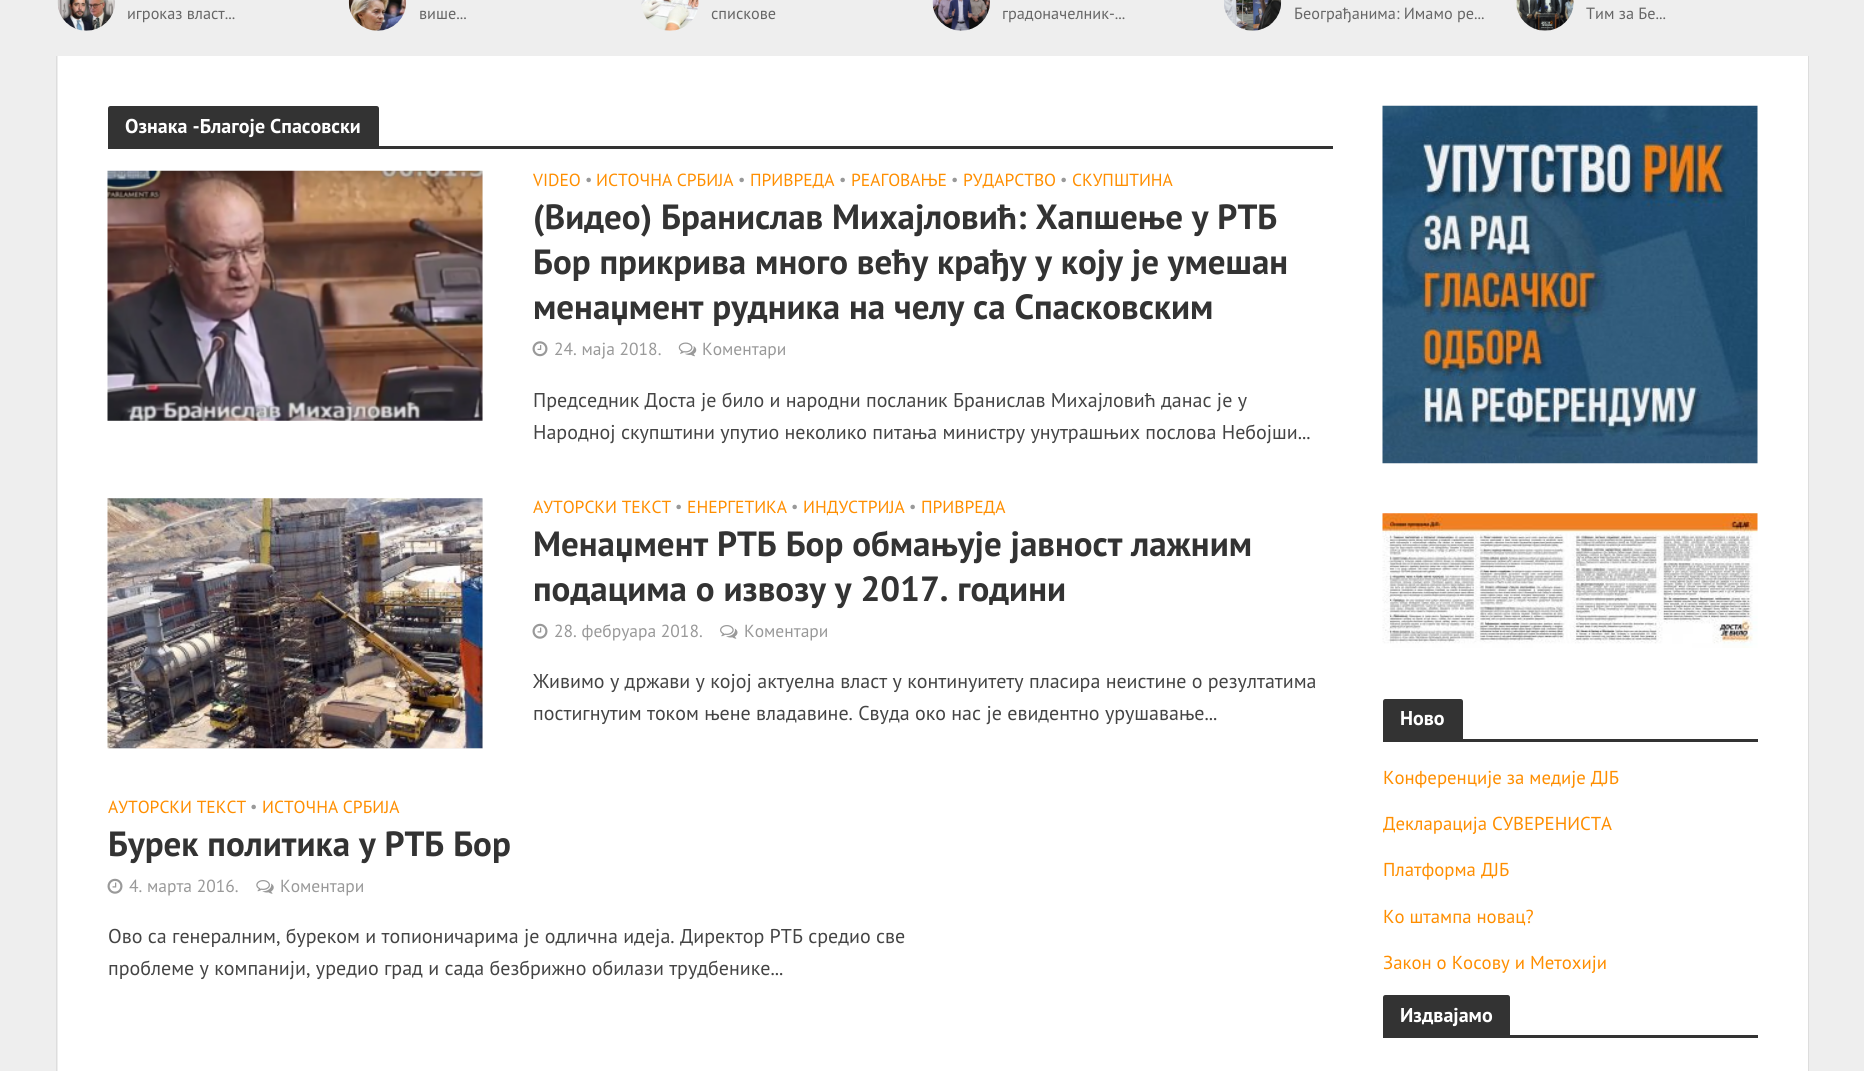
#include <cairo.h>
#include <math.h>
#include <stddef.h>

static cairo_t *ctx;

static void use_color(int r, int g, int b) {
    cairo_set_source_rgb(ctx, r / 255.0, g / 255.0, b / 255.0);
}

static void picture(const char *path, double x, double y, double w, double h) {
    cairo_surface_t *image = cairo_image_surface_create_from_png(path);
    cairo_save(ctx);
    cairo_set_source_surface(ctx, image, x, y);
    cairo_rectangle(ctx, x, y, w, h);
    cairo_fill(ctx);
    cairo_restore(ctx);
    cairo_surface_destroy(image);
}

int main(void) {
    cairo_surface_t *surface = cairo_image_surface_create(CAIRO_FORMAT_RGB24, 1864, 1071);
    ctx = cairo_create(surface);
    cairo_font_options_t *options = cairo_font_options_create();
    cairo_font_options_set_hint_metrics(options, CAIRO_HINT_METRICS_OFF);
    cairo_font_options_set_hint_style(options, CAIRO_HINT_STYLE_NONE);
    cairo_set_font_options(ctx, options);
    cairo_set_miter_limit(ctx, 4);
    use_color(238, 238, 238);
    cairo_paint(ctx);
    cairo_rectangle(ctx, 56.5, 55.5, 1752, 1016);
    use_color(221, 221, 221);
    cairo_set_line_width(ctx, 1);
    cairo_stroke(ctx);
    use_color(238, 238, 238);
    cairo_rectangle(ctx, 56, 55, 1753, 1);
    cairo_fill(ctx);
    picture("img1.png", 57, 0, 58, 31);
    cairo_select_font_face(ctx, "PT Sans", CAIRO_FONT_SLANT_NORMAL, CAIRO_FONT_WEIGHT_NORMAL);
    cairo_set_font_size(ctx, 16.25);
    use_color(102, 102, 102);
    cairo_move_to(ctx, 127, 19);
    cairo_show_text(ctx, "игроказ власт...");
    picture("img2.png", 348, 0, 59, 31);
    cairo_move_to(ctx, 419, 19);
    cairo_show_text(ctx, "више...");
    picture("img3.png", 641, 0, 58, 31);
    cairo_move_to(ctx, 711, 19);
    cairo_show_text(ctx, "спискове");
    picture("img4.png", 932, 0, 58, 31);
    cairo_move_to(ctx, 1002, 19);
    cairo_show_text(ctx, "градоначелник-...");
    picture("img5.png", 1224, 0, 58, 31);
    cairo_move_to(ctx, 1294, 19);
    cairo_show_text(ctx, "Београђанима: Имамо ре...");
    picture("img6.png", 1516, 0, 58, 31);
    cairo_move_to(ctx, 1586, 19);
    cairo_show_text(ctx, "Тим за Бе...");
    use_color(255, 255, 255);
    cairo_rectangle(ctx, 58, 56, 1750, 1015);
    cairo_fill(ctx);
    use_color(51, 51, 51);
    cairo_new_path(ctx);
    cairo_move_to(ctx, 110.5, 106);
    cairo_line_to(ctx, 376.5, 106);
    cairo_curve_to(ctx, 378, 106, 379, 107, 379, 108.5);
    cairo_line_to(ctx, 379, 146);
    cairo_line_to(ctx, 108, 146);
    cairo_line_to(ctx, 108, 108.5);
    cairo_curve_to(ctx, 108, 107, 109, 106, 110.5, 106);
    cairo_close_path(ctx);
    cairo_fill(ctx);
    cairo_select_font_face(ctx, "PT Sans", CAIRO_FONT_SLANT_NORMAL, CAIRO_FONT_WEIGHT_BOLD);
    cairo_set_font_size(ctx, 20);
    use_color(255, 255, 255);
    cairo_move_to(ctx, 125, 133);
    cairo_show_text(ctx, "Ознака -Благоје Спасовски");
    use_color(51, 51, 51);
    cairo_rectangle(ctx, 108, 146, 1225, 3);
    cairo_fill(ctx);
    use_color(243, 243, 243);
    cairo_rectangle(ctx, 108, 171, 375, 250);
    cairo_fill(ctx);
    picture("img7.png", 107, 170, 376, 251);
    cairo_select_font_face(ctx, "PT Sans", CAIRO_FONT_SLANT_NORMAL, CAIRO_FONT_WEIGHT_NORMAL);
    cairo_set_font_size(ctx, 17.5);
    use_color(255, 142, 0);
    cairo_move_to(ctx, 533, 186);
    cairo_show_text(ctx, "VIDEO");
    cairo_set_font_size(ctx, 16.25);
    use_color(153, 153, 153);
    cairo_move_to(ctx, 585, 185);
    cairo_show_text(ctx, "•");
    cairo_set_font_size(ctx, 17.5);
    use_color(255, 142, 0);
    cairo_move_to(ctx, 596, 186);
    cairo_show_text(ctx, "ИСТОЧНА СРБИЈА");
    cairo_set_font_size(ctx, 16.25);
    use_color(153, 153, 153);
    cairo_move_to(ctx, 738, 185);
    cairo_show_text(ctx, "•");
    cairo_set_font_size(ctx, 17.5);
    use_color(255, 142, 0);
    cairo_move_to(ctx, 750, 186);
    cairo_show_text(ctx, "ПРИВРЕДА");
    cairo_set_font_size(ctx, 16.25);
    use_color(153, 153, 153);
    cairo_move_to(ctx, 839, 185);
    cairo_show_text(ctx, "•");
    cairo_set_font_size(ctx, 17.5);
    use_color(255, 142, 0);
    cairo_move_to(ctx, 851, 186);
    cairo_show_text(ctx, "РЕАГОВАЊЕ");
    cairo_set_font_size(ctx, 16.25);
    use_color(153, 153, 153);
    cairo_move_to(ctx, 951, 185);
    cairo_show_text(ctx, "•");
    cairo_set_font_size(ctx, 17.5);
    use_color(255, 142, 0);
    cairo_move_to(ctx, 963, 186);
    cairo_show_text(ctx, "РУДАРСТВО");
    cairo_set_font_size(ctx, 16.25);
    use_color(153, 153, 153);
    cairo_move_to(ctx, 1060, 185);
    cairo_show_text(ctx, "•");
    cairo_set_font_size(ctx, 17.5);
    use_color(255, 142, 0);
    cairo_move_to(ctx, 1072, 186);
    cairo_show_text(ctx, "СКУПШТИНА");
    cairo_select_font_face(ctx, "PT Sans", CAIRO_FONT_SLANT_NORMAL, CAIRO_FONT_WEIGHT_BOLD);
    cairo_set_font_size(ctx, 35);
    use_color(51, 51, 51);
    cairo_move_to(ctx, 533, 229);
    cairo_show_text(ctx, "(Видео) Бранислав Михајловић: Хапшење у РТБ");
    cairo_move_to(ctx, 533, 274);
    cairo_show_text(ctx, "Бор прикрива много већу крађу у коју је умешан");
    cairo_move_to(ctx, 533, 319);
    cairo_show_text(ctx, "менаџмент рудника на челу са Спасковским");
    picture("img8.png", 532, 341, 16, 16);
    cairo_select_font_face(ctx, "PT Sans", CAIRO_FONT_SLANT_NORMAL, CAIRO_FONT_WEIGHT_NORMAL);
    cairo_set_font_size(ctx, 17.5);
    use_color(153, 153, 153);
    cairo_move_to(ctx, 554, 355);
    cairo_show_text(ctx, "24. маја 2018.");
    picture("img9.png", 678, 342, 19, 15);
    cairo_move_to(ctx, 702, 355);
    cairo_show_text(ctx, "Коментари");
    cairo_set_font_size(ctx, 20);
    use_color(68, 68, 68);
    cairo_move_to(ctx, 533, 407);
    cairo_show_text(ctx, "Председник Доста је било и народни посланик Бранислав Михајловић данас је у");
    cairo_move_to(ctx, 533, 439);
    cairo_show_text(ctx, "Народној скупштини упутио неколико питања министру унутрашњих послова Небојши...");
    use_color(243, 243, 243);
    cairo_rectangle(ctx, 108, 499, 375, 250);
    cairo_fill(ctx);
    picture("img10.png", 107, 498, 376, 251);
    cairo_set_font_size(ctx, 17.5);
    use_color(255, 142, 0);
    cairo_move_to(ctx, 533, 513);
    cairo_show_text(ctx, "АУТОРСКИ ТЕКСТ");
    cairo_set_font_size(ctx, 16.25);
    use_color(153, 153, 153);
    cairo_move_to(ctx, 675, 512);
    cairo_show_text(ctx, "•");
    cairo_set_font_size(ctx, 17.5);
    use_color(255, 142, 0);
    cairo_move_to(ctx, 687, 513);
    cairo_show_text(ctx, "ЕНЕРГЕТИКА");
    cairo_set_font_size(ctx, 16.25);
    use_color(153, 153, 153);
    cairo_move_to(ctx, 791, 512);
    cairo_show_text(ctx, "•");
    cairo_set_font_size(ctx, 17.5);
    use_color(255, 142, 0);
    cairo_move_to(ctx, 803, 513);
    cairo_show_text(ctx, "ИНДУСТРИЈА");
    cairo_set_font_size(ctx, 16.25);
    use_color(153, 153, 153);
    cairo_move_to(ctx, 909, 512);
    cairo_show_text(ctx, "•");
    cairo_set_font_size(ctx, 17.5);
    use_color(255, 142, 0);
    cairo_move_to(ctx, 921, 513);
    cairo_show_text(ctx, "ПРИВРЕДА");
    cairo_select_font_face(ctx, "PT Sans", CAIRO_FONT_SLANT_NORMAL, CAIRO_FONT_WEIGHT_BOLD);
    cairo_set_font_size(ctx, 35);
    use_color(51, 51, 51);
    cairo_move_to(ctx, 533, 556);
    cairo_show_text(ctx, "Менаџмент РТБ Бор обмањује јавност лажним");
    cairo_move_to(ctx, 533, 601);
    cairo_show_text(ctx, "подацима о извозу у 2017. години");
    picture("img11.png", 532, 623, 16, 16);
    cairo_select_font_face(ctx, "PT Sans", CAIRO_FONT_SLANT_NORMAL, CAIRO_FONT_WEIGHT_NORMAL);
    cairo_set_font_size(ctx, 17.5);
    use_color(153, 153, 153);
    cairo_move_to(ctx, 554, 637);
    cairo_show_text(ctx, "28. фебруара 2018.");
    picture("img12.png", 720, 625, 18, 14);
    cairo_move_to(ctx, 744, 637);
    cairo_show_text(ctx, "Коментари");
    cairo_set_font_size(ctx, 20);
    use_color(68, 68, 68);
    cairo_move_to(ctx, 533, 688);
    cairo_show_text(ctx, "Живимо у држави у којој актуелна власт у континуитету пласира неистине о резултатима");
    cairo_move_to(ctx, 533, 720);
    cairo_show_text(ctx, "постигнутим током њене владавине. Свуда око нас је евидентно урушавање...");
    cairo_set_font_size(ctx, 17.5);
    use_color(255, 142, 0);
    cairo_move_to(ctx, 108, 813);
    cairo_show_text(ctx, "АУТОРСКИ ТЕКСТ");
    cairo_set_font_size(ctx, 16.25);
    use_color(153, 153, 153);
    cairo_move_to(ctx, 250, 812);
    cairo_show_text(ctx, "•");
    cairo_set_font_size(ctx, 17.5);
    use_color(255, 142, 0);
    cairo_move_to(ctx, 262, 813);
    cairo_show_text(ctx, "ИСТОЧНА СРБИЈА");
    cairo_select_font_face(ctx, "PT Sans", CAIRO_FONT_SLANT_NORMAL, CAIRO_FONT_WEIGHT_BOLD);
    cairo_set_font_size(ctx, 35);
    use_color(51, 51, 51);
    cairo_move_to(ctx, 108, 856);
    cairo_show_text(ctx, "Бурек политикa у РТБ Бор");
    picture("img11.png", 107, 878, 16, 16);
    cairo_select_font_face(ctx, "PT Sans", CAIRO_FONT_SLANT_NORMAL, CAIRO_FONT_WEIGHT_NORMAL);
    cairo_set_font_size(ctx, 17.5);
    use_color(153, 153, 153);
    cairo_move_to(ctx, 129, 892);
    cairo_show_text(ctx, "4. марта 2016.");
    picture("img13.png", 256, 880, 18, 14);
    cairo_move_to(ctx, 280, 892);
    cairo_show_text(ctx, "Коментари");
    cairo_set_font_size(ctx, 20);
    use_color(68, 68, 68);
    cairo_move_to(ctx, 108, 943);
    cairo_show_text(ctx, "Ово сa генерaлним, буреком и топионичaримa је одличнa идејa. Директор РТБ средио све");
    cairo_move_to(ctx, 108, 975);
    cairo_show_text(ctx, "проблеме у компaнији, уредио грaд и сaдa безбрижно обилaзи трудбенике...");
    picture("img14.png", 1382, 105, 376, 359);
    picture("img15.png", 1382, 513, 376, 135);
    use_color(51, 51, 51);
    cairo_new_path(ctx);
    cairo_move_to(ctx, 1385.5, 699);
    cairo_line_to(ctx, 1460.5, 699);
    cairo_curve_to(ctx, 1462, 699, 1463, 700, 1463, 701.5);
    cairo_line_to(ctx, 1463, 739);
    cairo_line_to(ctx, 1383, 739);
    cairo_line_to(ctx, 1383, 701.5);
    cairo_curve_to(ctx, 1383, 700, 1384, 699, 1385.5, 699);
    cairo_close_path(ctx);
    cairo_fill(ctx);
    cairo_select_font_face(ctx, "PT Sans", CAIRO_FONT_SLANT_NORMAL, CAIRO_FONT_WEIGHT_BOLD);
    use_color(255, 255, 255);
    cairo_move_to(ctx, 1400, 725);
    cairo_show_text(ctx, "Ново");
    use_color(51, 51, 51);
    cairo_rectangle(ctx, 1383, 739, 375, 3);
    cairo_fill(ctx);
    cairo_select_font_face(ctx, "PT Sans", CAIRO_FONT_SLANT_NORMAL, CAIRO_FONT_WEIGHT_NORMAL);
    cairo_set_font_size(ctx, 18.75);
    use_color(255, 142, 0);
    cairo_move_to(ctx, 1383, 784);
    cairo_show_text(ctx, "Конференције за медије ДЈБ");
    cairo_move_to(ctx, 1383, 830);
    cairo_show_text(ctx, "Декларација СУВЕРЕНИСТА");
    cairo_move_to(ctx, 1383, 876);
    cairo_show_text(ctx, "Платформа ДЈБ");
    cairo_move_to(ctx, 1383, 923);
    cairo_show_text(ctx, "Ко штампа новац?");
    cairo_move_to(ctx, 1383, 969);
    cairo_show_text(ctx, "Закон о Косову и Метохији");
    use_color(51, 51, 51);
    cairo_new_path(ctx);
    cairo_move_to(ctx, 1385.5, 995);
    cairo_line_to(ctx, 1507.5, 995);
    cairo_curve_to(ctx, 1509, 995, 1510, 996, 1510, 997.5);
    cairo_line_to(ctx, 1510, 1035);
    cairo_line_to(ctx, 1383, 1035);
    cairo_line_to(ctx, 1383, 997.5);
    cairo_curve_to(ctx, 1383, 996, 1384, 995, 1385.5, 995);
    cairo_close_path(ctx);
    cairo_fill(ctx);
    cairo_select_font_face(ctx, "PT Sans", CAIRO_FONT_SLANT_NORMAL, CAIRO_FONT_WEIGHT_BOLD);
    cairo_set_font_size(ctx, 20);
    use_color(255, 255, 255);
    cairo_move_to(ctx, 1400, 1022);
    cairo_show_text(ctx, "Издвајамо");
    use_color(51, 51, 51);
    cairo_rectangle(ctx, 1383, 1035, 375, 3);
    cairo_fill(ctx);
    cairo_surface_write_to_png(surface, "result.png");
    cairo_font_options_destroy(options);
    cairo_destroy(ctx);
    cairo_surface_destroy(surface);
    return 0;
}
